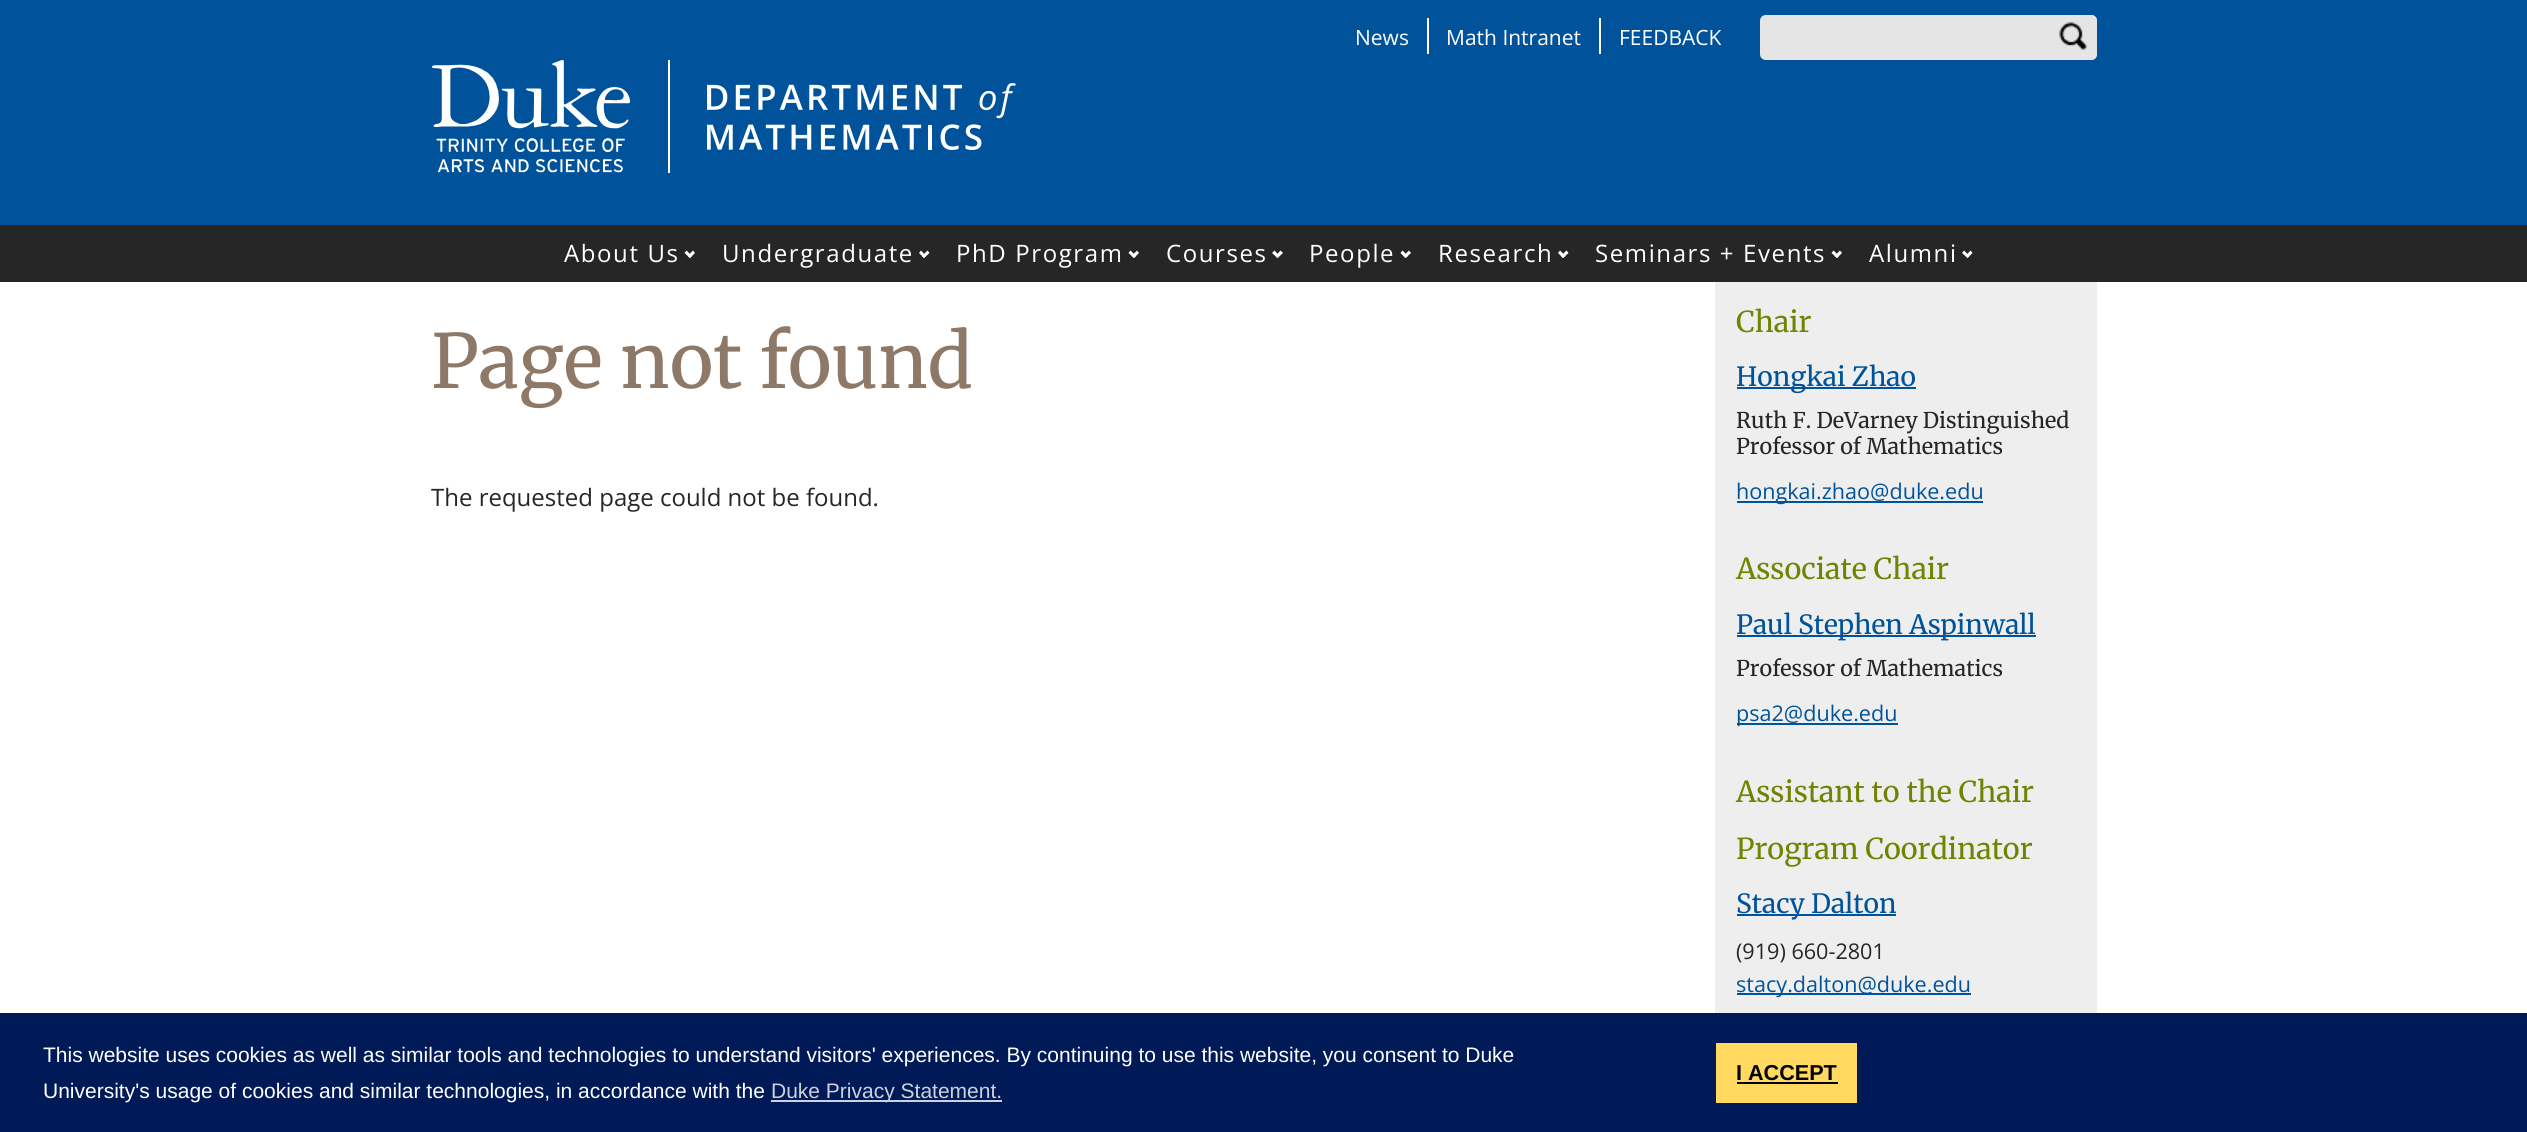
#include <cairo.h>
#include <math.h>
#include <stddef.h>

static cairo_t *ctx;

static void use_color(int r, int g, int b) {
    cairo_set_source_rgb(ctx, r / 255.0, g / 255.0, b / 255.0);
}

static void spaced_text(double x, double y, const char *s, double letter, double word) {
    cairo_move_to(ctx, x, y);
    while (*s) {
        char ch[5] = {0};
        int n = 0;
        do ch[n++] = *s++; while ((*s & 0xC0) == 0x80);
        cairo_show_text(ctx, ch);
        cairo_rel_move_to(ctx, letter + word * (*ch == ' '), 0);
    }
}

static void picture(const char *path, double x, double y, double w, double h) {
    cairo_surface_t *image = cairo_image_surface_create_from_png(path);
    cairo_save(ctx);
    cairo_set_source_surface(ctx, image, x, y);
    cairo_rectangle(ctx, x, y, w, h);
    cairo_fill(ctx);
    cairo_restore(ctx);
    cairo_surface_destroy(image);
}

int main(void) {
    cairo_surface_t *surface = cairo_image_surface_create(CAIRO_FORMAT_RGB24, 2527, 1132);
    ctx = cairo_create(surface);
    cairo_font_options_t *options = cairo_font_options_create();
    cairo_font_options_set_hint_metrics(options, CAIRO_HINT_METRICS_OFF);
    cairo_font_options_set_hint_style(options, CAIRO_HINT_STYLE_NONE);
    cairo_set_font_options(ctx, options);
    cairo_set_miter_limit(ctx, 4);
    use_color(255, 255, 255);
    cairo_paint(ctx);
    use_color(0, 83, 155);
    cairo_rectangle(ctx, 0, 0, 2527, 225);
    cairo_fill(ctx);
    use_color(255, 255, 255);
    cairo_rectangle(ctx, 1427, 18, 2, 36);
    cairo_fill(ctx);
    cairo_select_font_face(ctx, "Open Sans", CAIRO_FONT_SLANT_NORMAL, CAIRO_FONT_WEIGHT_NORMAL);
    cairo_set_font_size(ctx, 21);
    cairo_move_to(ctx, 1355, 45);
    cairo_show_text(ctx, "News");
    cairo_rectangle(ctx, 1599, 18, 2, 36);
    cairo_fill(ctx);
    cairo_move_to(ctx, 1446, 45);
    cairo_show_text(ctx, "Math Intranet");
    cairo_move_to(ctx, 1619, 45);
    cairo_show_text(ctx, "FEEDBACK");
    use_color(229, 229, 229);
    cairo_new_path(ctx);
    cairo_move_to(ctx, 1766, 16);
    cairo_line_to(ctx, 2059, 16);
    cairo_line_to(ctx, 2059, 59);
    cairo_line_to(ctx, 1766, 59);
    cairo_curve_to(ctx, 1763, 59, 1761, 57, 1761, 54);
    cairo_line_to(ctx, 1761, 21);
    cairo_curve_to(ctx, 1761, 18, 1763, 16, 1766, 16);
    cairo_close_path(ctx);
    cairo_fill_preserve(ctx);
    cairo_stroke(ctx);
    cairo_new_path(ctx);
    cairo_move_to(ctx, 2052, 15);
    cairo_line_to(ctx, 2091, 15);
    cairo_curve_to(ctx, 2094.5, 15, 2097, 17.5, 2097, 21);
    cairo_line_to(ctx, 2097, 54);
    cairo_curve_to(ctx, 2097, 57.5, 2094.5, 60, 2091, 60);
    cairo_line_to(ctx, 2052, 60);
    cairo_close_path(ctx);
    cairo_fill(ctx);
    picture("img1.png", 2059, 22, 28, 28);
    cairo_new_path(ctx);
    cairo_move_to(ctx, 2053, 16);
    cairo_line_to(ctx, 2091, 16);
    cairo_curve_to(ctx, 2094, 16, 2096, 18, 2096, 21);
    cairo_line_to(ctx, 2096, 54);
    cairo_curve_to(ctx, 2096, 57, 2094, 59, 2091, 59);
    cairo_line_to(ctx, 2053, 59);
    cairo_close_path(ctx);
    cairo_stroke(ctx);
    use_color(255, 255, 255);
    cairo_rectangle(ctx, 668, 60, 2, 113);
    cairo_fill(ctx);
    picture("img2.png", 432, 60, 198, 113);
    picture("img3.png", 707, 83, 309, 67);
    use_color(38, 38, 38);
    cairo_rectangle(ctx, 0, 225, 2527, 57);
    cairo_fill(ctx);
    cairo_set_font_size(ctx, 24);
    use_color(255, 255, 255);
    spaced_text(564, 262, "About Us", 1.6, 0);
    cairo_new_path(ctx);
    cairo_move_to(ctx, 693, 250.5);
    cairo_line_to(ctx, 695, 253);
    cairo_line_to(ctx, 690, 258);
    cairo_line_to(ctx, 687.5, 256);
    cairo_close_path(ctx);
    cairo_fill(ctx);
    cairo_new_path(ctx);
    cairo_move_to(ctx, 686.5, 250.5);
    cairo_line_to(ctx, 692, 256);
    cairo_line_to(ctx, 690, 258);
    cairo_line_to(ctx, 684.5, 253);
    cairo_close_path(ctx);
    cairo_fill(ctx);
    spaced_text(722, 262, "Undergraduate", 1.6, 0);
    cairo_new_path(ctx);
    cairo_move_to(ctx, 927.5, 250.5);
    cairo_line_to(ctx, 929.5, 253);
    cairo_line_to(ctx, 924, 258);
    cairo_line_to(ctx, 922, 256);
    cairo_close_path(ctx);
    cairo_fill(ctx);
    cairo_new_path(ctx);
    cairo_move_to(ctx, 921, 250.5);
    cairo_line_to(ctx, 926, 256);
    cairo_line_to(ctx, 924, 258);
    cairo_line_to(ctx, 919, 253);
    cairo_close_path(ctx);
    cairo_fill(ctx);
    spaced_text(956, 262, "PhD Program", 1.6, 0);
    cairo_new_path(ctx);
    cairo_move_to(ctx, 1137, 250.5);
    cairo_line_to(ctx, 1139, 253);
    cairo_line_to(ctx, 1134, 258);
    cairo_line_to(ctx, 1131.5, 256);
    cairo_close_path(ctx);
    cairo_fill(ctx);
    cairo_new_path(ctx);
    cairo_move_to(ctx, 1130.5, 250.5);
    cairo_line_to(ctx, 1136, 256);
    cairo_line_to(ctx, 1134, 258);
    cairo_line_to(ctx, 1128.5, 253);
    cairo_close_path(ctx);
    cairo_fill(ctx);
    spaced_text(1166, 262, "Courses", 1.6, 0);
    cairo_new_path(ctx);
    cairo_move_to(ctx, 1280.5, 250.5);
    cairo_line_to(ctx, 1283, 253);
    cairo_line_to(ctx, 1277.5, 258);
    cairo_line_to(ctx, 1275.5, 256);
    cairo_close_path(ctx);
    cairo_fill(ctx);
    cairo_new_path(ctx);
    cairo_move_to(ctx, 1274.5, 250.5);
    cairo_line_to(ctx, 1279.5, 256);
    cairo_line_to(ctx, 1277.5, 258);
    cairo_line_to(ctx, 1272, 253);
    cairo_close_path(ctx);
    cairo_fill(ctx);
    spaced_text(1309, 262, "People", 1.6, 0);
    cairo_new_path(ctx);
    cairo_move_to(ctx, 1409, 250.5);
    cairo_line_to(ctx, 1411, 253);
    cairo_line_to(ctx, 1405.5, 258);
    cairo_line_to(ctx, 1403.5, 256);
    cairo_close_path(ctx);
    cairo_fill(ctx);
    cairo_new_path(ctx);
    cairo_move_to(ctx, 1402.5, 250.5);
    cairo_line_to(ctx, 1408, 256);
    cairo_line_to(ctx, 1405.5, 258);
    cairo_line_to(ctx, 1400.5, 253);
    cairo_close_path(ctx);
    cairo_fill(ctx);
    spaced_text(1438, 262, "Research", 1.6, 0);
    cairo_new_path(ctx);
    cairo_move_to(ctx, 1566.5, 250.5);
    cairo_line_to(ctx, 1568.5, 253);
    cairo_line_to(ctx, 1563, 258);
    cairo_line_to(ctx, 1561, 256);
    cairo_close_path(ctx);
    cairo_fill(ctx);
    cairo_new_path(ctx);
    cairo_move_to(ctx, 1560, 250.5);
    cairo_line_to(ctx, 1565.5, 256);
    cairo_line_to(ctx, 1563, 258);
    cairo_line_to(ctx, 1558, 253);
    cairo_close_path(ctx);
    cairo_fill(ctx);
    spaced_text(1595, 262, "Seminars + Events", 1.6, 0);
    cairo_new_path(ctx);
    cairo_move_to(ctx, 1840, 250.5);
    cairo_line_to(ctx, 1842, 253);
    cairo_line_to(ctx, 1837, 258);
    cairo_line_to(ctx, 1834.5, 256);
    cairo_close_path(ctx);
    cairo_fill(ctx);
    cairo_new_path(ctx);
    cairo_move_to(ctx, 1833.5, 250.5);
    cairo_line_to(ctx, 1839, 256);
    cairo_line_to(ctx, 1837, 258);
    cairo_line_to(ctx, 1831.5, 253);
    cairo_close_path(ctx);
    cairo_fill(ctx);
    spaced_text(1869, 262, "Alumni", 1.6, 0);
    cairo_new_path(ctx);
    cairo_move_to(ctx, 1970.5, 250.5);
    cairo_line_to(ctx, 1972.5, 253);
    cairo_line_to(ctx, 1967.5, 258);
    cairo_line_to(ctx, 1965.5, 256);
    cairo_close_path(ctx);
    cairo_fill(ctx);
    cairo_new_path(ctx);
    cairo_move_to(ctx, 1964, 250.5);
    cairo_line_to(ctx, 1969.5, 256);
    cairo_line_to(ctx, 1967.5, 258);
    cairo_line_to(ctx, 1962, 253);
    cairo_close_path(ctx);
    cairo_fill(ctx);
    cairo_select_font_face(ctx, "Merriweather", CAIRO_FONT_SLANT_NORMAL, CAIRO_FONT_WEIGHT_NORMAL);
    cairo_set_font_size(ctx, 74.5);
    use_color(142, 121, 105);
    cairo_move_to(ctx, 431, 388);
    cairo_show_text(ctx, "Page not found");
    cairo_select_font_face(ctx, "Open Sans", CAIRO_FONT_SLANT_NORMAL, CAIRO_FONT_WEIGHT_NORMAL);
    cairo_set_font_size(ctx, 24);
    use_color(38, 38, 38);
    cairo_move_to(ctx, 431, 506);
    cairo_show_text(ctx, "The requested page could not be found.");
    use_color(238, 238, 238);
    cairo_rectangle(ctx, 1715, 282, 382, 731);
    cairo_fill(ctx);
    cairo_select_font_face(ctx, "Merriweather", CAIRO_FONT_SLANT_NORMAL, CAIRO_FONT_WEIGHT_NORMAL);
    cairo_set_font_size(ctx, 28.75);
    use_color(114, 131, 2);
    cairo_move_to(ctx, 1736, 332);
    cairo_show_text(ctx, "Chair");
    use_color(0, 83, 155);
    cairo_rectangle(ctx, 1737, 387, 179, 2);
    cairo_fill(ctx);
    cairo_set_font_size(ctx, 26.4);
    cairo_move_to(ctx, 1736, 386);
    cairo_show_text(ctx, "Hongkai Zhao");
    cairo_set_font_size(ctx, 21.6);
    use_color(38, 38, 38);
    cairo_move_to(ctx, 1736, 428);
    cairo_show_text(ctx, "Ruth F. DeVarney Distinguished");
    cairo_move_to(ctx, 1736, 454);
    cairo_show_text(ctx, "Professor of Mathematics");
    use_color(0, 83, 155);
    cairo_rectangle(ctx, 1737, 501, 246, 2);
    cairo_fill(ctx);
    cairo_select_font_face(ctx, "Open Sans", CAIRO_FONT_SLANT_NORMAL, CAIRO_FONT_WEIGHT_NORMAL);
    cairo_move_to(ctx, 1736, 499);
    cairo_show_text(ctx, "hongkai.zhao@duke.edu");
    cairo_select_font_face(ctx, "Merriweather", CAIRO_FONT_SLANT_NORMAL, CAIRO_FONT_WEIGHT_NORMAL);
    cairo_set_font_size(ctx, 28.75);
    use_color(114, 131, 2);
    cairo_move_to(ctx, 1736, 579);
    cairo_show_text(ctx, "Associate Chair");
    use_color(0, 83, 155);
    cairo_rectangle(ctx, 1737, 635, 299, 2);
    cairo_fill(ctx);
    cairo_set_font_size(ctx, 26.4);
    cairo_move_to(ctx, 1736, 634);
    cairo_show_text(ctx, "Paul Stephen Aspinwall");
    cairo_set_font_size(ctx, 21.6);
    use_color(38, 38, 38);
    cairo_move_to(ctx, 1736, 676);
    cairo_show_text(ctx, "Professor of Mathematics");
    use_color(0, 83, 155);
    cairo_rectangle(ctx, 1737, 723, 161, 2);
    cairo_fill(ctx);
    cairo_select_font_face(ctx, "Open Sans", CAIRO_FONT_SLANT_NORMAL, CAIRO_FONT_WEIGHT_NORMAL);
    cairo_move_to(ctx, 1736, 721);
    cairo_show_text(ctx, "psa2@duke.edu");
    cairo_select_font_face(ctx, "Merriweather", CAIRO_FONT_SLANT_NORMAL, CAIRO_FONT_WEIGHT_NORMAL);
    cairo_set_font_size(ctx, 28.75);
    use_color(114, 131, 2);
    cairo_move_to(ctx, 1736, 802);
    cairo_show_text(ctx, "Assistant to the Chair");
    cairo_move_to(ctx, 1736, 859);
    cairo_show_text(ctx, "Program Coordinator");
    use_color(0, 83, 155);
    cairo_rectangle(ctx, 1737, 914, 159, 2);
    cairo_fill(ctx);
    cairo_set_font_size(ctx, 26.4);
    cairo_move_to(ctx, 1736, 913);
    cairo_show_text(ctx, "Stacy Dalton");
    cairo_select_font_face(ctx, "Open Sans", CAIRO_FONT_SLANT_NORMAL, CAIRO_FONT_WEIGHT_NORMAL);
    cairo_set_font_size(ctx, 21.6);
    use_color(38, 38, 38);
    cairo_move_to(ctx, 1736, 959);
    cairo_show_text(ctx, "(919) 660-2801");
    use_color(0, 83, 155);
    cairo_rectangle(ctx, 1737, 993, 234, 2);
    cairo_fill(ctx);
    cairo_move_to(ctx, 1736, 992);
    cairo_show_text(ctx, "stacy.dalton@duke.edu");
    use_color(0, 26, 87);
    cairo_rectangle(ctx, 0, 1013, 2527, 119);
    cairo_fill(ctx);
    cairo_select_font_face(ctx, "Liberation Sans", CAIRO_FONT_SLANT_NORMAL, CAIRO_FONT_WEIGHT_NORMAL);
    cairo_set_font_size(ctx, 21);
    use_color(255, 255, 255);
    cairo_move_to(ctx, 43, 1062);
    cairo_show_text(ctx, "This website uses cookies as well as similar tools and technologies to understand visitors' experiences. By continuing to use this website, you consent to Duke");
    cairo_move_to(ctx, 43, 1098);
    cairo_show_text(ctx, "University's usage of cookies and similar technologies, in accordance with the");
    use_color(204, 209, 221);
    cairo_rectangle(ctx, 771, 1100, 231, 2);
    cairo_fill(ctx);
    cairo_move_to(ctx, 771, 1098);
    cairo_show_text(ctx, "Duke Privacy Statement.");
    use_color(255, 217, 96);
    cairo_rectangle(ctx, 1716, 1043, 141, 60);
    cairo_fill(ctx);
    cairo_select_font_face(ctx, "Liberation Sans", CAIRO_FONT_SLANT_NORMAL, CAIRO_FONT_WEIGHT_BOLD);
    cairo_set_font_size(ctx, 21.6);
    use_color(0, 0, 0);
    cairo_move_to(ctx, 1736, 1080);
    cairo_show_text(ctx, "I ACCEPT");
    cairo_rectangle(ctx, 1737, 1082, 101, 2);
    cairo_fill(ctx);
    cairo_surface_write_to_png(surface, "result.png");
    cairo_font_options_destroy(options);
    cairo_destroy(ctx);
    cairo_surface_destroy(surface);
    return 0;
}
